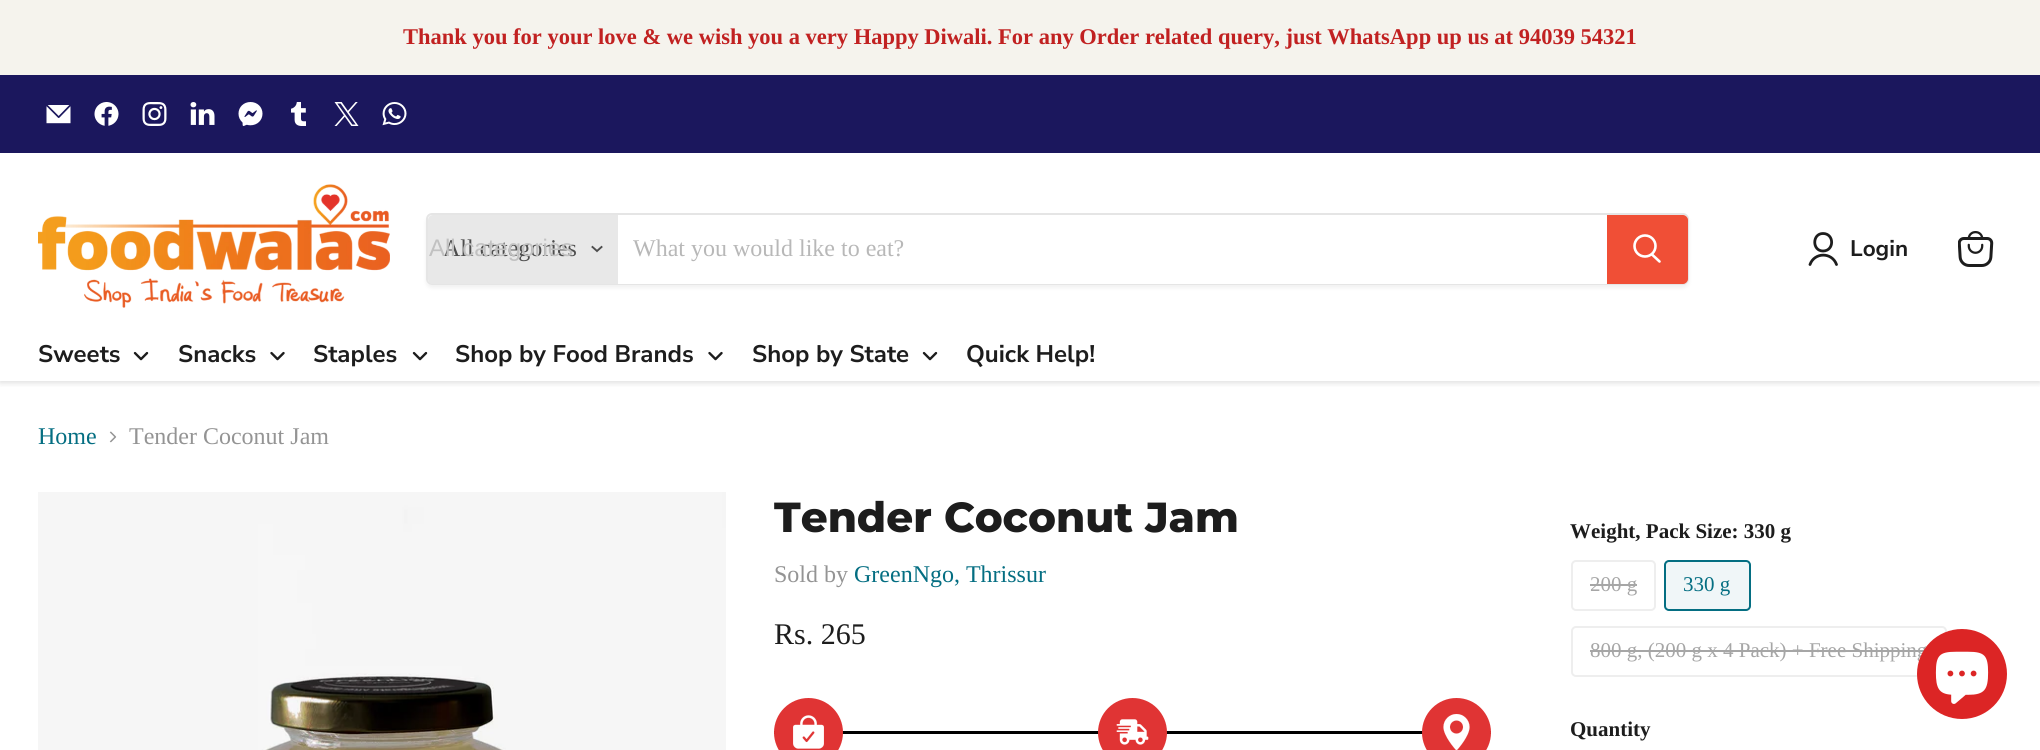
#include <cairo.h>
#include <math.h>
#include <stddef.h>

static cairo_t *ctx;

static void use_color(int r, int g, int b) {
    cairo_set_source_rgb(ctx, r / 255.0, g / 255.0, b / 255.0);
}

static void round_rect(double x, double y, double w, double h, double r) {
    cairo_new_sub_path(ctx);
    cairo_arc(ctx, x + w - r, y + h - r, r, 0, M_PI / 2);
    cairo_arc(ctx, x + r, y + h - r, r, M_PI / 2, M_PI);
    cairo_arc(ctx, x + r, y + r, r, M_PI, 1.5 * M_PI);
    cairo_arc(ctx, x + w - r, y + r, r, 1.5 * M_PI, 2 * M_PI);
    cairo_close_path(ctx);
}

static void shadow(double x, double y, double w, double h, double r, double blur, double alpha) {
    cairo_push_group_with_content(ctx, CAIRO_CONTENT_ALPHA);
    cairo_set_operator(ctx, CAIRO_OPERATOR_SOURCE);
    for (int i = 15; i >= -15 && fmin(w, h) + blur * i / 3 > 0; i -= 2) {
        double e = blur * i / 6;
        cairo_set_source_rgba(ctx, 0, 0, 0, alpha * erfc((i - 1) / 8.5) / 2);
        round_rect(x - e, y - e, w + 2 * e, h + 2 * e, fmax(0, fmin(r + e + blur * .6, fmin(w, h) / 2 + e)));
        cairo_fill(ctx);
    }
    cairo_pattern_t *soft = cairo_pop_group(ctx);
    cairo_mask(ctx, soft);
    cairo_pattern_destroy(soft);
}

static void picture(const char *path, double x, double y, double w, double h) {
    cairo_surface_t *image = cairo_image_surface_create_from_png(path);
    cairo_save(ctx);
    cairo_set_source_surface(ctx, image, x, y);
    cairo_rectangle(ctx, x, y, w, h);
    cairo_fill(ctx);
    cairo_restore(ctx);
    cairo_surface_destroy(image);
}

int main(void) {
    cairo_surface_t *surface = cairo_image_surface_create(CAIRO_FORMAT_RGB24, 2040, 750);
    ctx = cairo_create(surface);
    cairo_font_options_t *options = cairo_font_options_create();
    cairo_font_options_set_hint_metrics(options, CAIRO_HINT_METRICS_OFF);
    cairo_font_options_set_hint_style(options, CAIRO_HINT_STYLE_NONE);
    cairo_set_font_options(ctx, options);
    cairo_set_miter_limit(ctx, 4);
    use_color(255, 255, 255);
    cairo_paint(ctx);
    use_color(245, 243, 237);
    cairo_rectangle(ctx, 0, 0, 2040, 75);
    cairo_fill(ctx);
    cairo_select_font_face(ctx, "Liberation Serif", CAIRO_FONT_SLANT_NORMAL, CAIRO_FONT_WEIGHT_BOLD);
    cairo_set_font_size(ctx, 22.5);
    use_color(193, 33, 33);
    cairo_move_to(ctx, 403, 44);
    cairo_show_text(ctx, "Thank you for your love & we wish you a very Happy Diwali. For any Order related query, just WhatsApp up us at 94039 54321");
    cairo_save(ctx);
    cairo_rectangle(ctx, 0, 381, 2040, 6);
    cairo_clip(ctx);
    use_color(128, 128, 128);
    shadow(0, 156, 2040, 227, 0, 3, 0.25);
    cairo_restore(ctx);
    use_color(27, 23, 93);
    cairo_rectangle(ctx, 0, 75, 2040, 78);
    cairo_fill(ctx);
    use_color(255, 255, 255);
    cairo_rectangle(ctx, 0, 153, 2040, 2);
    cairo_fill(ctx);
    picture("img1.png", 46, 105, 25, 19);
    picture("img2.png", 94, 102, 25, 24);
    picture("img3.png", 142, 102, 25, 24);
    picture("img4.png", 190, 102, 25, 23);
    picture("img5.png", 238, 102, 25, 24);
    picture("img6.png", 291, 102, 15, 24);
    picture("img7.png", 334, 102, 25, 24);
    picture("img8.png", 382, 102, 25, 24);
    picture("img9.png", 38, 184, 352, 124);
    cairo_save(ctx);
    cairo_set_fill_rule(ctx, CAIRO_FILL_RULE_EVEN_ODD);
    cairo_new_path(ctx);
    cairo_move_to(ctx, 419, 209);
    cairo_line_to(ctx, 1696, 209);
    cairo_line_to(ctx, 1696, 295);
    cairo_line_to(ctx, 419, 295);
    cairo_close_path(ctx);
    cairo_move_to(ctx, 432, 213);
    cairo_line_to(ctx, 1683, 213);
    cairo_curve_to(ctx, 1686.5, 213, 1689, 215.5, 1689, 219);
    cairo_line_to(ctx, 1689, 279);
    cairo_curve_to(ctx, 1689, 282.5, 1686.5, 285, 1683, 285);
    cairo_line_to(ctx, 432, 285);
    cairo_curve_to(ctx, 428.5, 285, 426, 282.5, 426, 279);
    cairo_line_to(ctx, 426, 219);
    cairo_curve_to(ctx, 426, 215.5, 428.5, 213, 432, 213);
    cairo_close_path(ctx);
    cairo_clip(ctx);
    use_color(128, 128, 128);
    shadow(426, 216, 1263, 72, 6, 2, 0.11);
    cairo_restore(ctx);
    round_rect(427, 214, 1261, 70, 5);
    cairo_set_source_rgba(ctx, 0.502, 0.502, 0.502, 0.2);
    cairo_stroke(ctx);
    use_color(232, 232, 232);
    cairo_new_path(ctx);
    cairo_move_to(ctx, 433, 215);
    cairo_line_to(ctx, 618, 215);
    cairo_line_to(ctx, 618, 284);
    cairo_line_to(ctx, 433, 284);
    cairo_curve_to(ctx, 430, 284, 428, 282, 428, 279);
    cairo_line_to(ctx, 428, 220);
    cairo_curve_to(ctx, 428, 217, 430, 215, 433, 215);
    cairo_close_path(ctx);
    cairo_fill(ctx);
    cairo_select_font_face(ctx, "Liberation Serif", CAIRO_FONT_SLANT_NORMAL, CAIRO_FONT_WEIGHT_NORMAL);
    cairo_set_font_size(ctx, 24);
    use_color(77, 77, 77);
    cairo_move_to(ctx, 443, 256);
    cairo_show_text(ctx, "All categories");
    cairo_select_font_face(ctx, "Liberation Sans", CAIRO_FONT_SLANT_NORMAL, CAIRO_FONT_WEIGHT_NORMAL);
    use_color(193, 193, 193);
    cairo_move_to(ctx, 429, 256);
    cairo_show_text(ctx, "All categories");
    cairo_new_path(ctx);
    cairo_move_to(ctx, 597, 251);
    cairo_line_to(ctx, 601.5, 247);
    cairo_move_to(ctx, 597, 251);
    cairo_line_to(ctx, 592.5, 247);
    use_color(77, 77, 77);
    cairo_set_line_width(ctx, 1.9);
    cairo_set_line_cap(ctx, CAIRO_LINE_CAP_SQUARE);
    cairo_stroke(ctx);
    use_color(255, 255, 255);
    cairo_rectangle(ctx, 618, 283, 989, 1);
    cairo_fill(ctx);
    cairo_select_font_face(ctx, "Liberation Serif", CAIRO_FONT_SLANT_NORMAL, CAIRO_FONT_WEIGHT_NORMAL);
    use_color(184, 184, 184);
    cairo_move_to(ctx, 633, 256);
    cairo_show_text(ctx, "What you would like to eat?");
    use_color(240, 79, 54);
    cairo_new_path(ctx);
    cairo_move_to(ctx, 1608, 216);
    cairo_line_to(ctx, 1683, 216);
    cairo_curve_to(ctx, 1685, 216, 1687, 218, 1687, 220);
    cairo_line_to(ctx, 1687, 279);
    cairo_curve_to(ctx, 1687, 281, 1685, 283, 1683, 283);
    cairo_line_to(ctx, 1608, 283);
    cairo_close_path(ctx);
    cairo_fill_preserve(ctx);
    cairo_set_line_width(ctx, 2);
    cairo_set_line_cap(ctx, CAIRO_LINE_CAP_BUTT);
    cairo_stroke(ctx);
    cairo_new_path(ctx);
    cairo_move_to(ctx, 1659.5, 261.5);
    cairo_line_to(ctx, 1652, 254.5);
    use_color(255, 255, 255);
    cairo_set_line_width(ctx, 2.6);
    cairo_set_line_cap(ctx, CAIRO_LINE_CAP_ROUND);
    cairo_stroke(ctx);
    cairo_arc(ctx, 1645, 246, 10.5, 0, 2 * M_PI);
    cairo_set_line_cap(ctx, CAIRO_LINE_CAP_BUTT);
    cairo_stroke(ctx);
    cairo_new_path(ctx);
    cairo_move_to(ctx, 1823, 251);
    cairo_curve_to(ctx, 1834.5, 251, 1834.5, 233.5, 1823, 233.5);
    cairo_curve_to(ctx, 1812, 233.5, 1812, 251, 1823, 251);
    cairo_close_path(ctx);
    cairo_move_to(ctx, 1836.5, 264.5);
    cairo_curve_to(ctx, 1832, 252, 1814.5, 252, 1810, 264.5);
    use_color(29, 29, 29);
    cairo_set_line_width(ctx, 2.8);
    cairo_set_line_cap(ctx, CAIRO_LINE_CAP_ROUND);
    cairo_set_line_join(ctx, CAIRO_LINE_JOIN_ROUND);
    cairo_stroke(ctx);
    cairo_select_font_face(ctx, "Nunito Sans", CAIRO_FONT_SLANT_NORMAL, CAIRO_FONT_WEIGHT_BOLD);
    cairo_set_font_size(ctx, 22.5);
    cairo_move_to(ctx, 1850, 256);
    cairo_show_text(ctx, "Login");
    picture("img10.png", 1958, 231, 36, 36);
    cairo_set_font_size(ctx, 24);
    cairo_move_to(ctx, 38, 362);
    cairo_show_text(ctx, "Sweets");
    picture("img11.png", 133, 351, 16, 10);
    cairo_move_to(ctx, 178, 362);
    cairo_show_text(ctx, "Snacks");
    picture("img12.png", 270, 351, 15, 10);
    cairo_move_to(ctx, 313, 362);
    cairo_show_text(ctx, "Staples");
    picture("img11.png", 412, 351, 16, 10);
    cairo_move_to(ctx, 455, 362);
    cairo_show_text(ctx, "Shop by Food Brands");
    picture("img12.png", 708, 351, 15, 10);
    cairo_move_to(ctx, 752, 362);
    cairo_show_text(ctx, "Shop by State");
    picture("img11.png", 922, 351, 16, 10);
    cairo_move_to(ctx, 966, 362);
    cairo_show_text(ctx, "Quick Help!");
    cairo_select_font_face(ctx, "Liberation Serif", CAIRO_FONT_SLANT_NORMAL, CAIRO_FONT_WEIGHT_NORMAL);
    use_color(4, 110, 130);
    cairo_move_to(ctx, 38, 444);
    cairo_show_text(ctx, "Home");
    picture("img13.png", 109, 431, 8, 12);
    use_color(148, 148, 148);
    cairo_move_to(ctx, 129, 444);
    cairo_show_text(ctx, "Tender Coconut Jam");
    picture("img14.png", 38, 492, 688, 258);
    cairo_select_font_face(ctx, "Montserrat ExtraBold", CAIRO_FONT_SLANT_NORMAL, CAIRO_FONT_WEIGHT_NORMAL);
    cairo_set_font_size(ctx, 42);
    use_color(29, 29, 29);
    cairo_move_to(ctx, 774, 532);
    cairo_show_text(ctx, "Tender Coconut Jam");
    cairo_select_font_face(ctx, "Liberation Serif", CAIRO_FONT_SLANT_NORMAL, CAIRO_FONT_WEIGHT_NORMAL);
    cairo_set_font_size(ctx, 24);
    use_color(148, 148, 148);
    cairo_move_to(ctx, 774, 582);
    cairo_show_text(ctx, "Sold by");
    use_color(4, 110, 130);
    cairo_move_to(ctx, 854, 582);
    cairo_show_text(ctx, "GreenNgo, Thrissur");
    cairo_set_font_size(ctx, 30);
    use_color(29, 29, 29);
    cairo_move_to(ctx, 774, 644);
    cairo_show_text(ctx, "Rs. 265");
    use_color(0, 0, 0);
    cairo_rectangle(ctx, 774, 731, 717, 3);
    cairo_fill(ctx);
    use_color(224, 52, 52);
    cairo_arc(ctx, 808.5, 732.5, 34.5, 0, 2 * M_PI);
    cairo_fill(ctx);
    picture("img15.png", 793, 715, 31, 34);
    cairo_arc(ctx, 1132.5, 732.5, 34.5, 0, 2 * M_PI);
    cairo_fill(ctx);
    picture("img16.png", 1116, 719, 33, 26);
    cairo_arc(ctx, 1456.5, 732.5, 34.5, 0, 2 * M_PI);
    cairo_fill(ctx);
    picture("img17.png", 1443, 714, 27, 36);
    cairo_select_font_face(ctx, "Liberation Serif", CAIRO_FONT_SLANT_NORMAL, CAIRO_FONT_WEIGHT_BOLD);
    cairo_set_font_size(ctx, 21);
    use_color(29, 29, 29);
    cairo_move_to(ctx, 1570, 538);
    cairo_show_text(ctx, "Weight, Pack Size: 330 g");
    round_rect(1572, 561, 83, 49, 4);
    use_color(238, 238, 238);
    cairo_set_line_width(ctx, 2);
    cairo_set_line_cap(ctx, CAIRO_LINE_CAP_BUTT);
    cairo_set_line_join(ctx, CAIRO_LINE_JOIN_MITER);
    cairo_stroke(ctx);
    cairo_select_font_face(ctx, "Liberation Serif", CAIRO_FONT_SLANT_NORMAL, CAIRO_FONT_WEIGHT_NORMAL);
    use_color(166, 166, 166);
    cairo_move_to(ctx, 1590, 591);
    cairo_show_text(ctx, "200 g");
    cairo_rectangle(ctx, 1590, 584, 47, 2);
    cairo_fill(ctx);
    use_color(240, 246, 248);
    round_rect(1665, 561, 85, 49, 4);
    cairo_fill_preserve(ctx);
    use_color(4, 110, 130);
    cairo_stroke(ctx);
    cairo_move_to(ctx, 1683, 591);
    cairo_show_text(ctx, "330 g");
    round_rect(1572, 627, 374, 49, 4);
    use_color(238, 238, 238);
    cairo_stroke(ctx);
    use_color(166, 166, 166);
    cairo_move_to(ctx, 1590, 657);
    cairo_show_text(ctx, "800 g, (200 g x 4 Pack) + Free Shipping");
    cairo_rectangle(ctx, 1590, 650, 338, 2);
    cairo_fill(ctx);
    cairo_select_font_face(ctx, "Liberation Serif", CAIRO_FONT_SLANT_NORMAL, CAIRO_FONT_WEIGHT_BOLD);
    use_color(29, 29, 29);
    cairo_move_to(ctx, 1570, 736);
    cairo_show_text(ctx, "Quantity");
    use_color(220, 37, 37);
    cairo_new_path(ctx);
    cairo_arc(ctx, 1962, 674, 45, 0, 2 * M_PI);
    cairo_fill(ctx);
    picture("img18.png", 1935, 651, 54, 53);
    cairo_surface_write_to_png(surface, "result.png");
    cairo_font_options_destroy(options);
    cairo_destroy(ctx);
    cairo_surface_destroy(surface);
    return 0;
}
